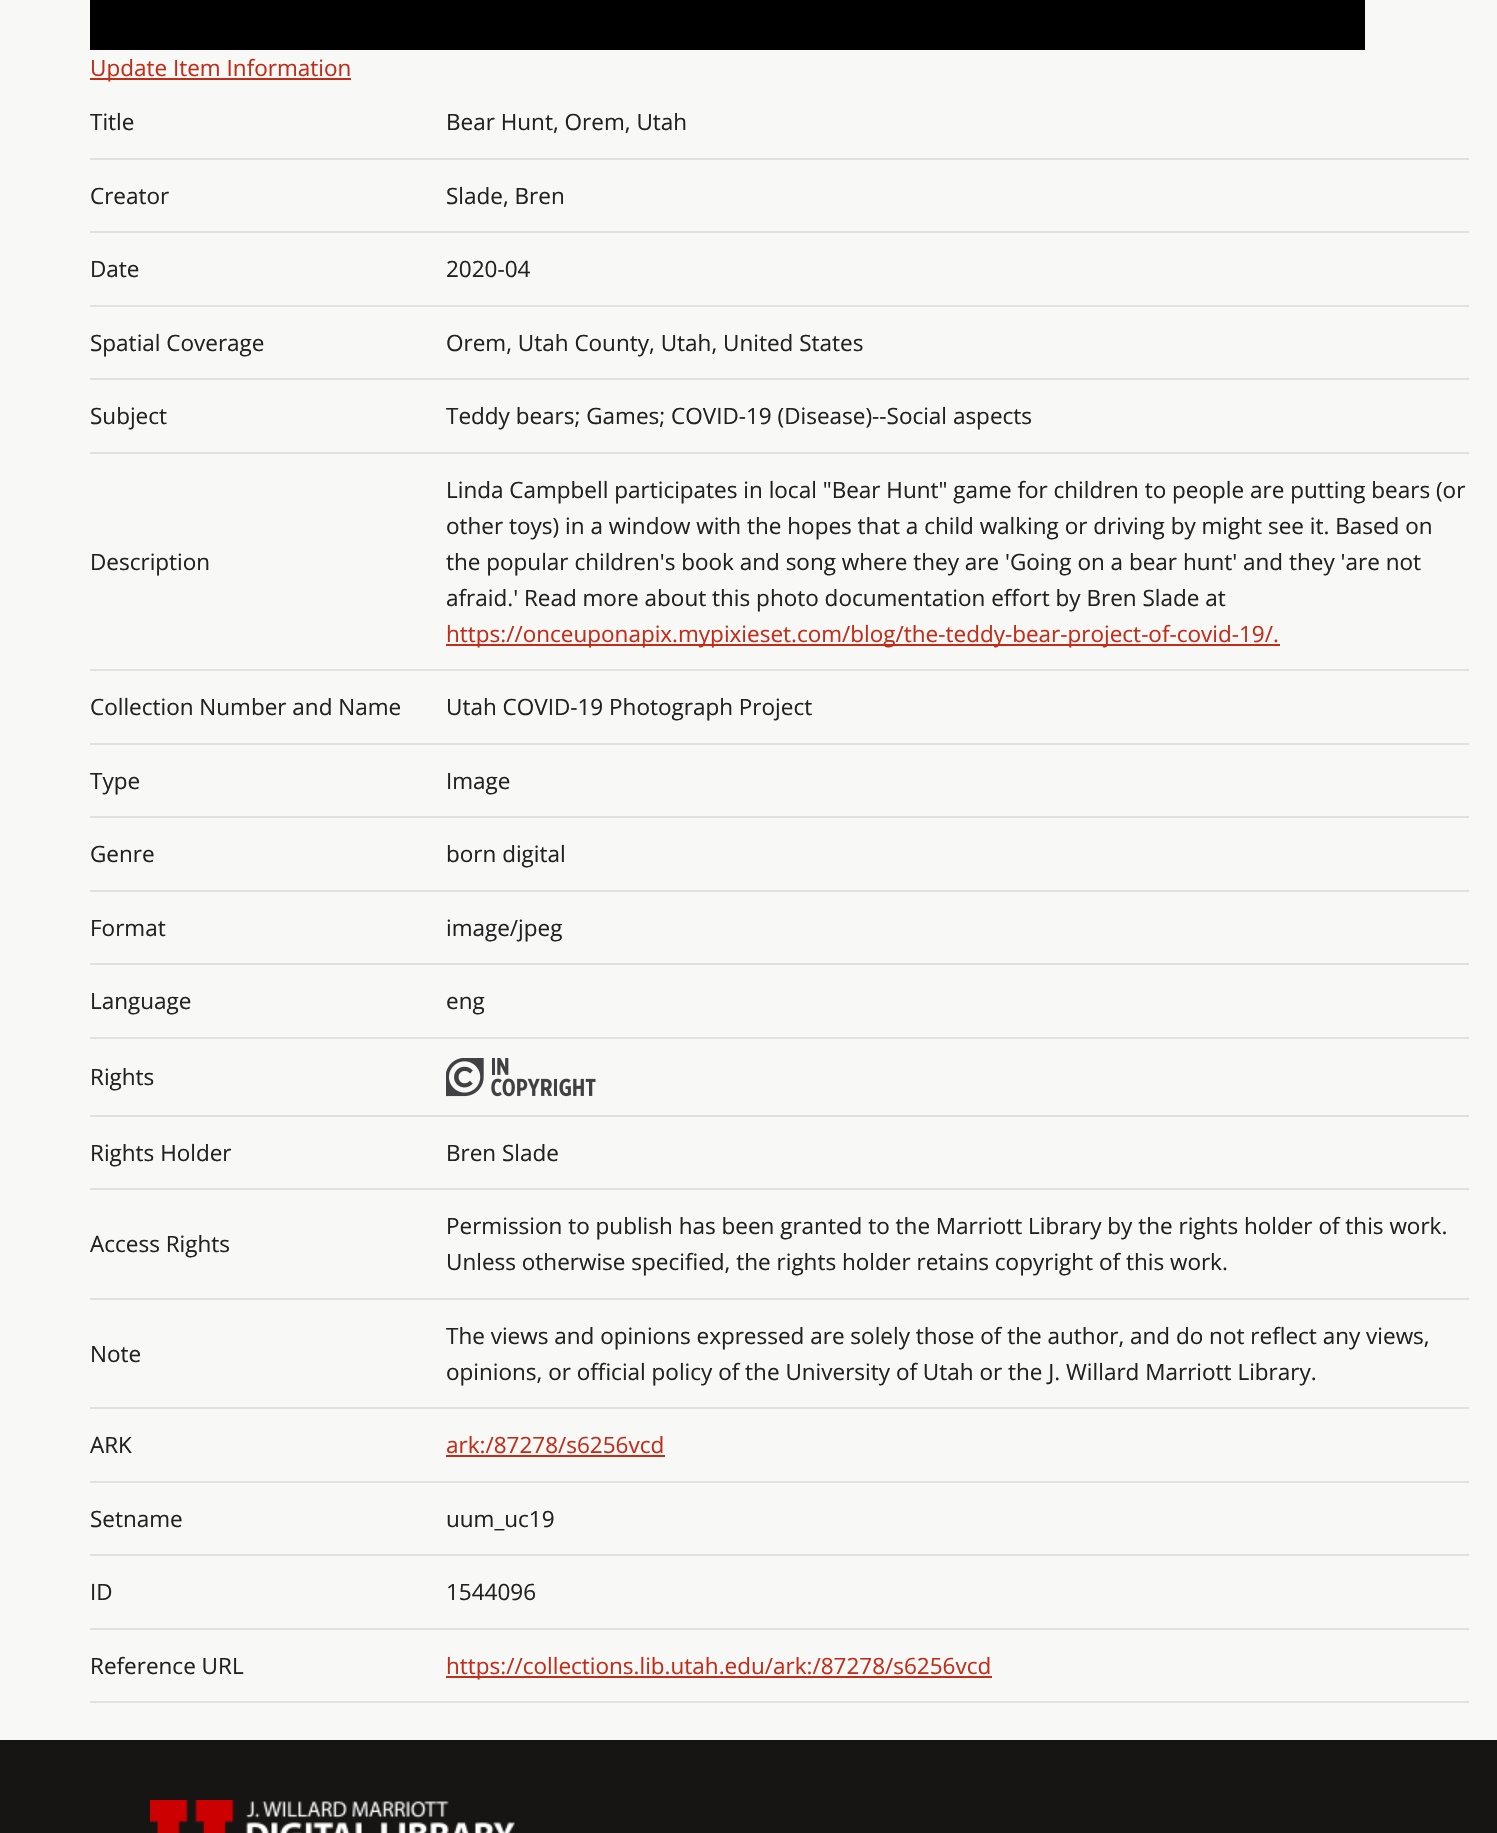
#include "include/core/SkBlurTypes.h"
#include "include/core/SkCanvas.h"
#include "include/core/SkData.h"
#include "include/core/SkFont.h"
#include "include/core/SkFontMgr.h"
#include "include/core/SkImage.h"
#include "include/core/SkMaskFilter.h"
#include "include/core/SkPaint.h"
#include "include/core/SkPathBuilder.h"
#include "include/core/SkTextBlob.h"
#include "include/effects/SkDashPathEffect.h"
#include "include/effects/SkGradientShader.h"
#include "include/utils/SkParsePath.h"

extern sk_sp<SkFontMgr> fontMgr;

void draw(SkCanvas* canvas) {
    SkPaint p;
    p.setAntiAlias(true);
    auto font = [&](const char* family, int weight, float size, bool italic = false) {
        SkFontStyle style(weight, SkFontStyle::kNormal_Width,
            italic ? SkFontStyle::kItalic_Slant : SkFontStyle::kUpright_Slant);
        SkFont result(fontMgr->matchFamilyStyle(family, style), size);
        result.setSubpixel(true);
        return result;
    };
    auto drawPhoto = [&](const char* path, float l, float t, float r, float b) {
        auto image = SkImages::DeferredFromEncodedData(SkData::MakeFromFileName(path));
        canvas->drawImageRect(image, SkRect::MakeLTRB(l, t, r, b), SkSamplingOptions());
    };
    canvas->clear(0xFFF8F8F7);
    p.setColor(0xFF000000);
    canvas->drawRect(SkRect::MakeLTRB(90, 0, 1365, 50), p);
    p.setColor(0xFFC22D19);
    canvas->drawRect(SkRect::MakeLTRB(90, 78, 351, 80), p);
    auto font1 = font("Open Sans", 400, 22.5f);
    canvas->drawString("Update Item Information", 90, 76, font1, p);
    p.setColor(0xFF222222);
    canvas->drawString("Title", 90, 130, font1, p);
    p.setColor(0xFFE1E1E1);
    canvas->drawRect(SkRect::MakeLTRB(90, 158, 1469, 160), p);
    p.setColor(0xFF222222);
    canvas->drawString("Bear Hunt, Orem, Utah", 446, 130, font1, p);
    canvas->drawString("Creator", 90, 204, font1, p);
    p.setColor(0xFFE1E1E1);
    canvas->drawRect(SkRect::MakeLTRB(90, 231, 1469, 233), p);
    p.setColor(0xFF222222);
    canvas->drawString("Slade, Bren", 446, 204, font1, p);
    canvas->drawString("Date", 90, 277, font1, p);
    p.setColor(0xFFE1E1E1);
    canvas->drawRect(SkRect::MakeLTRB(90, 305, 1469, 307), p);
    p.setColor(0xFF222222);
    canvas->drawString("2020-04", 446, 277, font1, p);
    canvas->drawString("Spatial Coverage", 90, 351, font1, p);
    p.setColor(0xFFE1E1E1);
    canvas->drawRect(SkRect::MakeLTRB(90, 378, 1469, 380), p);
    p.setColor(0xFF222222);
    canvas->drawString("Orem, Utah County, Utah, United States", 446, 351, font1, p);
    canvas->drawString("Subject", 90, 424, font1, p);
    p.setColor(0xFFE1E1E1);
    canvas->drawRect(SkRect::MakeLTRB(90, 452, 1469, 454), p);
    p.setColor(0xFF222222);
    canvas->drawString("Teddy bears; Games; COVID-19 (Disease)--Social aspects", 446, 424, font1, p);
    canvas->drawString("Description", 90, 570, font1, p);
    p.setColor(0xFFE1E1E1);
    canvas->drawRect(SkRect::MakeLTRB(90, 669, 1469, 671), p);
    p.setColor(0xFF222222);
    {
        const struct { const char* s; float x, y; } items[] = {
            {"Linda Campbell participates in local \"Bear Hunt\" game for children to people are putting bears (or", 446, 498},
            {"other toys) in a window with the hopes that a child walking or driving by might see it. Based on", 446, 534},
            {"the popular children's book and song where they are 'Going on a bear hunt' and they 'are not", 446, 570},
            {"afraid.' Read more about this photo documentation effort by Bren Slade at", 446, 606},
        };
        for (auto [s, x, y] : items) {
            canvas->drawString(s, x, y, font1, p);
        }
    }
    p.setColor(0xFFC22D19);
    canvas->drawRect(SkRect::MakeLTRB(446, 644, 1280, 646), p);
    canvas->drawString("https://onceuponapix.mypixieset.com/blog/the-teddy-bear-project-of-covid-19/.", 446, 642, font1, p);
    p.setColor(0xFF222222);
    canvas->drawString("Collection Number and Name", 90, 715, font1, p);
    p.setColor(0xFFE1E1E1);
    canvas->drawRect(SkRect::MakeLTRB(90, 743, 1469, 745), p);
    p.setColor(0xFF222222);
    canvas->drawString("Utah COVID-19 Photograph Project", 446, 715, font1, p);
    canvas->drawString("Type", 90, 789, font1, p);
    p.setColor(0xFFE1E1E1);
    canvas->drawRect(SkRect::MakeLTRB(90, 816, 1469, 818), p);
    p.setColor(0xFF222222);
    canvas->drawString("Image", 446, 789, font1, p);
    canvas->drawString("Genre", 90, 862, font1, p);
    p.setColor(0xFFE1E1E1);
    canvas->drawRect(SkRect::MakeLTRB(90, 890, 1469, 892), p);
    p.setColor(0xFF222222);
    canvas->drawString("born digital", 446, 862, font1, p);
    canvas->drawString("Format", 90, 936, font1, p);
    p.setColor(0xFFE1E1E1);
    canvas->drawRect(SkRect::MakeLTRB(90, 963, 1469, 965), p);
    p.setColor(0xFF222222);
    canvas->drawString("image/jpeg", 446, 936, font1, p);
    canvas->drawString("Language", 90, 1009, font1, p);
    p.setColor(0xFFE1E1E1);
    canvas->drawRect(SkRect::MakeLTRB(90, 1037, 1469, 1039), p);
    p.setColor(0xFF222222);
    canvas->drawString("eng", 446, 1009, font1, p);
    p.setColor(0xFFE1E1E1);
    canvas->drawRect(SkRect::MakeLTRB(90, 1115, 1469, 1117), p);
    drawPhoto("media/1.png", 446, 1058, 596, 1097);
    p.setColor(0xFF222222);
    canvas->drawString("Rights", 90, 1085, font1, p);
    canvas->drawString("Rights Holder", 90, 1161, font1, p);
    p.setColor(0xFFE1E1E1);
    canvas->drawRect(SkRect::MakeLTRB(90, 1188, 1469, 1190), p);
    p.setColor(0xFF222222);
    canvas->drawString("Bren Slade", 446, 1161, font1, p);
    canvas->drawString("Access Rights", 90, 1252, font1, p);
    p.setColor(0xFFE1E1E1);
    canvas->drawRect(SkRect::MakeLTRB(90, 1298, 1469, 1300), p);
    p.setColor(0xFF222222);
    {
        const struct { const char* s; float x, y; } items[] = {
            {"Permission to publish has been granted to the Marriott Library by the rights holder of this work.", 446, 1234},
            {"Unless otherwise specified, the rights holder retains copyright of this work.", 446, 1270},
            {"Note", 90, 1362},
        };
        for (auto [s, x, y] : items) {
            canvas->drawString(s, x, y, font1, p);
        }
    }
    p.setColor(0xFFE1E1E1);
    canvas->drawRect(SkRect::MakeLTRB(90, 1407, 1469, 1409), p);
    p.setColor(0xFF222222);
    {
        const struct { const char* s; float x, y; } items[] = {
            {"The views and opinions expressed are solely those of the author, and do not reflect any views,", 446, 1344},
            {"opinions, or official policy of the University of Utah or the J. Willard Marriott Library.", 446, 1380},
            {"ARK", 90, 1453},
        };
        for (auto [s, x, y] : items) {
            canvas->drawString(s, x, y, font1, p);
        }
    }
    p.setColor(0xFFE1E1E1);
    canvas->drawRect(SkRect::MakeLTRB(90, 1481, 1469, 1483), p);
    p.setColor(0xFFC22D19);
    canvas->drawString("ark:/87278/s6256vcd", 446, 1453, font1, p);
    canvas->drawRect(SkRect::MakeLTRB(446, 1455, 665, 1457), p);
    p.setColor(0xFF222222);
    canvas->drawString("Setname", 90, 1527, font1, p);
    p.setColor(0xFFE1E1E1);
    canvas->drawRect(SkRect::MakeLTRB(90, 1554, 1469, 1556), p);
    p.setColor(0xFF222222);
    canvas->drawString("uum_uc19", 446, 1527, font1, p);
    canvas->drawString("ID", 90, 1600, font1, p);
    p.setColor(0xFFE1E1E1);
    canvas->drawRect(SkRect::MakeLTRB(90, 1628, 1469, 1630), p);
    p.setColor(0xFF222222);
    canvas->drawString("1544096", 446, 1600, font1, p);
    canvas->drawString("Reference URL", 90, 1674, font1, p);
    p.setColor(0xFFE1E1E1);
    canvas->drawRect(SkRect::MakeLTRB(90, 1701, 1469, 1703), p);
    p.setColor(0xFFC22D19);
    canvas->drawRect(SkRect::MakeLTRB(446, 1676, 992, 1678), p);
    canvas->drawString("https://collections.lib.utah.edu/ark:/87278/s6256vcd", 446, 1674, font1, p);
    p.setColor(0xFF161514);
    canvas->drawRect(SkRect::MakeLTRB(0, 1740, 1497, 1833), p);
    drawPhoto("media/2.png", 150, 1800, 515, 1833);
}
